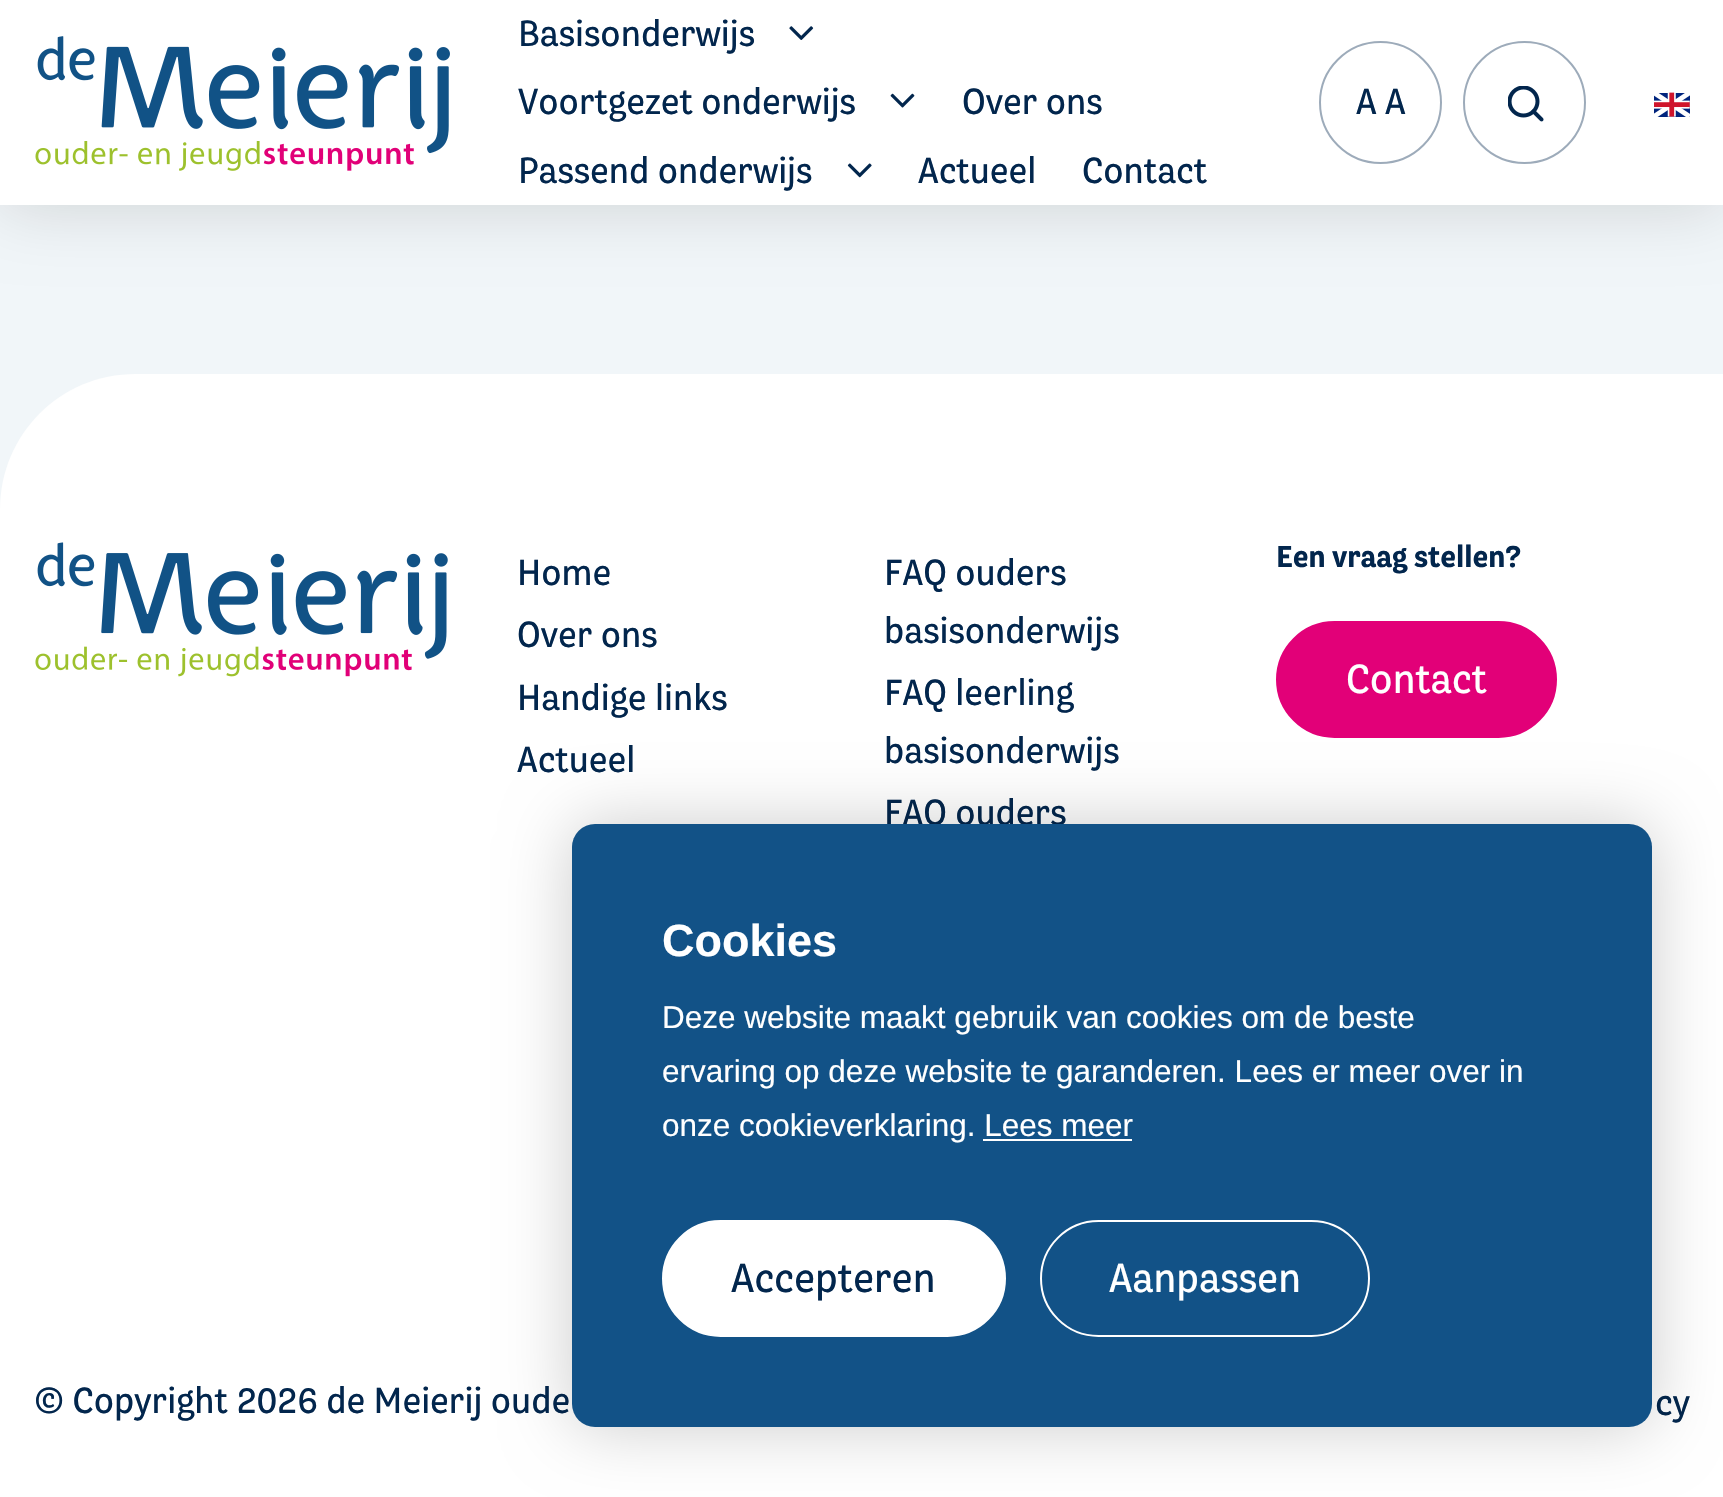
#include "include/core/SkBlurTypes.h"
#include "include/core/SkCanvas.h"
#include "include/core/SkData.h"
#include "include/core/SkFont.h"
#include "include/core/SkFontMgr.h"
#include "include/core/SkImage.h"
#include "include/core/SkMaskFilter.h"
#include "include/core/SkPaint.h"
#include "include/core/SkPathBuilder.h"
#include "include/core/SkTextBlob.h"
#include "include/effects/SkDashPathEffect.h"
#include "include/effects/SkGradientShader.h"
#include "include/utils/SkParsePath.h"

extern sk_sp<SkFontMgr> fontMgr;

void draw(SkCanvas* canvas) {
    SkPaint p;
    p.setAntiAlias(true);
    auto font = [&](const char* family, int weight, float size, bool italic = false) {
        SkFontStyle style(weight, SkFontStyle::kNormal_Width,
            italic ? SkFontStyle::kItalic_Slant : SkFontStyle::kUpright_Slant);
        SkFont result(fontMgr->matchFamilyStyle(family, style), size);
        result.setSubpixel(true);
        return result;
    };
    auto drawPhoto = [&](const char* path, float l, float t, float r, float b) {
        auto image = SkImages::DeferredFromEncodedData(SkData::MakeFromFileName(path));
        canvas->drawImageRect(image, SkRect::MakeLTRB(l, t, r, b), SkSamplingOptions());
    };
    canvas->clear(0xFFF1F6F9);
    p.setColor(0x26000000);
    p.setMaskFilter(SkMaskFilter::MakeBlur(kNormal_SkBlurStyle, 34));
    canvas->drawRect(SkRect::MakeLTRB(0, 0, 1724, 205), p);
    p.setMaskFilter(nullptr);
    p.setColor(0xFFFFFFFF);
    canvas->drawRect(SkRect::MakeLTRB(0, 0, 1723, 205), p);
    drawPhoto("media/1.png", 35, 36, 450, 171);
    auto font1 = font("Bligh", 400, 36);
    p.setColor(0xFF02264D);
    canvas->drawString("Basisonderwijs", 518, 46, font1, p);
    drawPhoto("media/2.png", 789, 26, 814, 40);
    canvas->drawString("Voortgezet onderwijs", 518, 114, font1, p);
    drawPhoto("media/3.png", 890, 93, 915, 108);
    canvas->drawString("Over ons", 962, 114, font1, p);
    canvas->drawString("Passend onderwijs", 518, 183, font1, p);
    drawPhoto("media/4.png", 847, 163, 872, 178);
    canvas->drawString("Actueel", 918, 183, font1, p);
    canvas->drawString("Contact", 1082, 183, font1, p);
    p.setStyle(SkPaint::kStroke_Style);
    p.setStrokeWidth(2);
    p.setColor(0xFF9DABBA);
    canvas->drawCircle(1380.5f, 102.5f, 60.5f, p);
    p.setStyle(SkPaint::kFill_Style);
    p.setColor(0xFF02264D);
    canvas->drawString("A A", 1356, 114, font1, p);
    p.setStyle(SkPaint::kStroke_Style);
    p.setColor(0xFF9DABBA);
    canvas->drawCircle(1524.5f, 102.5f, 60.5f, p);
    drawPhoto("media/5.png", 1508, 86, 1544, 122);
    drawPhoto("media/6.png", 1654, 92, 1690, 117);
    p.setStyle(SkPaint::kFill_Style);
    p.setColor(0xFFFFFFFF);
    canvas->drawPath(SkPathBuilder().moveTo(135, 374).lineTo(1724, 374).lineTo(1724, 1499).lineTo(0, 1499).lineTo(0, 509).cubicTo(0, 434.5f, 60.5f, 374, 135, 374).close().detach(), p);
    drawPhoto("media/7.png", 35, 542, 448, 677);
    p.setColor(0xFF02264D);
    {
        const struct { const char* s; float x, y; } items[] = {
            {"Home", 517, 585},
            {"Over ons", 517, 647},
            {"Handige links", 517, 710},
            {"Actueel", 517, 772},
            {"FAQ ouders", 884, 585},
            {"basisonderwijs", 884, 643},
            {"FAQ leerling", 884, 705},
            {"basisonderwijs", 884, 763},
            {"FAQ ouders", 884, 825},
        };
        for (auto [s, x, y] : items) {
            canvas->drawString(s, x, y, font1, p);
        }
    }
    auto font2 = font("Bligh", 700, 30);
    canvas->drawString("Een vraag stellen?", 1276, 567, font2, p);
    p.setColor(0xFFE20078);
    canvas->drawRoundRect(SkRect::MakeLTRB(1277, 622, 1556, 737), 57.5f, 57.5f, p);
    p.setStyle(SkPaint::kStroke_Style);
    canvas->drawRoundRect(SkRect::MakeLTRB(1277, 622, 1556, 737), 57.5f, 57.5f, p);
    auto font3 = font("Bligh", 400, 40.5f);
    p.setStyle(SkPaint::kFill_Style);
    p.setColor(0xFFFFFFFF);
    canvas->drawString("Contact", 1346, 693, font3, p);
    p.setColor(0xFF02264D);
    canvas->drawString("© Copyright 2026 de Meierij oude", 34, 1413, font1, p);
    canvas->drawString("cy", 1655, 1415, font1, p);
    p.setColor(0x33000000);
    p.setMaskFilter(SkMaskFilter::MakeBlur(kNormal_SkBlurStyle, 34));
    canvas->drawRoundRect(SkRect::MakeLTRB(572, 824, 1652, 1427), 23, 23, p);
    p.setMaskFilter(nullptr);
    p.setColor(0xFF125287);
    canvas->drawRoundRect(SkRect::MakeLTRB(572, 824, 1652, 1427), 23, 23, p);
    auto font4 = font("Liberation Sans", 700, 45);
    p.setColor(0xFFFFFFFF);
    canvas->drawString("Cookies", 662, 956, font4, p);
    auto font5 = font("Liberation Sans", 400, 31.5f);
    {
        const struct { const char* s; float x, y; } items[] = {
            {"Deze website maakt gebruik van cookies om de beste", 662, 1028},
            {"ervaring op deze website te garanderen. Lees er meer over in", 662, 1082},
            {"onze cookieverklaring. Lees meer", 662, 1136},
        };
        for (auto [s, x, y] : items) {
            canvas->drawString(s, x, y, font5, p);
        }
    }
    canvas->drawRect(SkRect::MakeLTRB(983, 1139, 1132, 1141), p);
    canvas->drawRoundRect(SkRect::MakeLTRB(663, 1221, 1005, 1336), 57.5f, 57.5f, p);
    p.setStyle(SkPaint::kStroke_Style);
    canvas->drawRoundRect(SkRect::MakeLTRB(663, 1221, 1005, 1336), 57.5f, 57.5f, p);
    p.setStyle(SkPaint::kFill_Style);
    p.setColor(0xFF02264D);
    canvas->drawString("Accepteren", 731, 1292, font3, p);
    p.setStyle(SkPaint::kStroke_Style);
    p.setColor(0xFFFFFFFF);
    canvas->drawRoundRect(SkRect::MakeLTRB(1041, 1221, 1369, 1336), 57.5f, 57.5f, p);
    p.setStyle(SkPaint::kFill_Style);
    canvas->drawString("Aanpassen", 1109, 1292, font3, p);
}
